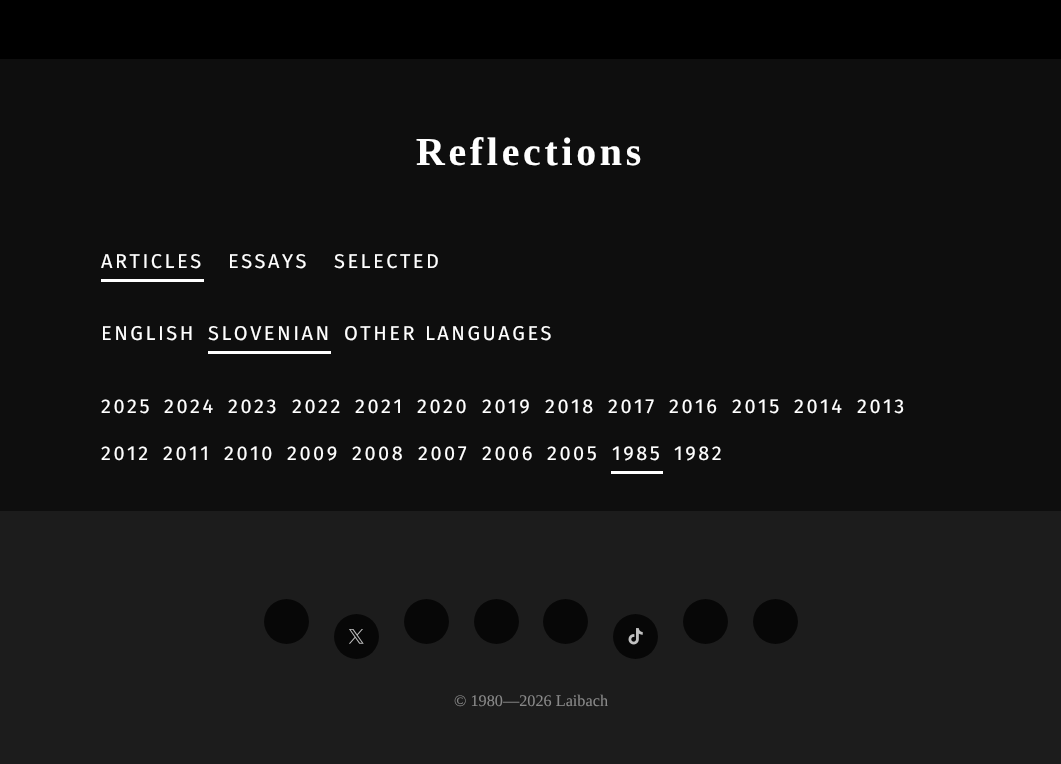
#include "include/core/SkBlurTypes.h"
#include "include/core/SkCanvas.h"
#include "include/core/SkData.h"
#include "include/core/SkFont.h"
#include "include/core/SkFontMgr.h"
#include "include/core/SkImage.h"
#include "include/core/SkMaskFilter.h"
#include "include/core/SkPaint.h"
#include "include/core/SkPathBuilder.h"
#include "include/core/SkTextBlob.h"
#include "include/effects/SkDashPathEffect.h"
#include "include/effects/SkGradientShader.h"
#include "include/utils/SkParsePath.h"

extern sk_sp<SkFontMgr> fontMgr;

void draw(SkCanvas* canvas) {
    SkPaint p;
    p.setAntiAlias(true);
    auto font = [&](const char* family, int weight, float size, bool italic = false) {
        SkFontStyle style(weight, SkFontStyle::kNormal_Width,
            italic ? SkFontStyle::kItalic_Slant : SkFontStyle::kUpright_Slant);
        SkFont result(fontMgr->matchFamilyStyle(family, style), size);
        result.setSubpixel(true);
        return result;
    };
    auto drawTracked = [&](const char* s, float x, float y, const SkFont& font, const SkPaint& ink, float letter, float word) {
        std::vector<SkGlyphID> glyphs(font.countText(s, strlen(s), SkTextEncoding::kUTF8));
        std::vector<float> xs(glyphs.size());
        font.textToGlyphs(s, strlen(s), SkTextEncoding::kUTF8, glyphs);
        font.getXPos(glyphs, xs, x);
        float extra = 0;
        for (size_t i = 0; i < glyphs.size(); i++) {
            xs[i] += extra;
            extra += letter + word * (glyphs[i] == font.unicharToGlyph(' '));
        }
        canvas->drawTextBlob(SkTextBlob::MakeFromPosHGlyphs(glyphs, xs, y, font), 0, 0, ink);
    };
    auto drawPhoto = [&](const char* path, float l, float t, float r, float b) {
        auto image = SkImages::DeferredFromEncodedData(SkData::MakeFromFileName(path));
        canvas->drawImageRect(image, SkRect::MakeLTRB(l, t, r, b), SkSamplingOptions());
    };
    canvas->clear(0xFF0E0E0E);
    p.setColor(0xFF000000);
    canvas->drawRect(SkRect::MakeLTRB(0, 0, 1061, 59), p);
    auto font1 = font("Liberation Serif", 700, 39.75f);
    p.setColor(0xFFFFFFFF);
    drawTracked("Reflections", 416, 165, font1, p, 3.75f, 0);
    canvas->drawRect(SkRect::MakeLTRB(101, 279, 204, 282), p);
    auto font2 = font("Fira Sans", 400, 20);
    {
        const struct { const char* s; float x, y; } items[] = {
            {"ARTICLES", 101, 268},
            {"ESSAYS", 228, 268},
            {"SELECTED", 334, 268},
            {"ENGLISH", 101, 340},
        };
        for (auto [s, x, y] : items) {
            drawTracked(s, x, y, font2, p, 2.5f, 0);
        }
    }
    canvas->drawRect(SkRect::MakeLTRB(208, 351, 331, 354), p);
    {
        const struct { const char* s; float x, y; } items[] = {
            {"SLOVENIAN", 208, 340},
            {"OTHER LANGUAGES", 344, 340},
            {"2025", 101, 413},
            {"2024", 164, 413},
            {"2023", 228, 413},
            {"2022", 292, 413},
            {"2021", 355, 413},
            {"2020", 417, 413},
            {"2019", 482, 413},
            {"2018", 545, 413},
            {"2017", 608, 413},
            {"2016", 669, 413},
            {"2015", 732, 413},
            {"2014", 794, 413},
            {"2013", 857, 413},
            {"2012", 101, 460},
            {"2011", 163, 460},
            {"2010", 224, 460},
            {"2009", 287, 460},
            {"2008", 352, 460},
            {"2007", 418, 460},
            {"2006", 482, 460},
            {"2005", 547, 460},
        };
        for (auto [s, x, y] : items) {
            drawTracked(s, x, y, font2, p, 2.5f, 0);
        }
    }
    canvas->drawRect(SkRect::MakeLTRB(611, 471, 663, 474), p);
    drawTracked("1985", 612, 460, font2, p, 2.5f, 0);
    drawTracked("1982", 674, 460, font2, p, 2.5f, 0);
    p.setColor(0xFF1C1C1C);
    canvas->drawRect(SkRect::MakeLTRB(0, 511, 1061, 764), p);
    p.setColor(0xFF070707);
    canvas->drawCircle(286.5f, 621.5f, 22.5f, p);
    canvas->drawCircle(356.5f, 636.5f, 22.5f, p);
    drawPhoto("media/1.png", 349, 629, 364, 644);
    canvas->drawCircle(426.5f, 621.5f, 22.5f, p);
    canvas->drawCircle(496.5f, 621.5f, 22.5f, p);
    canvas->drawCircle(565.5f, 621.5f, 22.5f, p);
    canvas->drawCircle(635.5f, 636.5f, 22.5f, p);
    drawPhoto("media/2.png", 628, 628, 643, 645);
    canvas->drawCircle(705.5f, 621.5f, 22.5f, p);
    canvas->drawCircle(775.5f, 621.5f, 22.5f, p);
    auto font3 = font("Liberation Serif", 400, 16.25f);
    p.setColor(0xFF888888);
    canvas->drawString("© 1980—2026 Laibach", 454, 706, font3, p);
}
